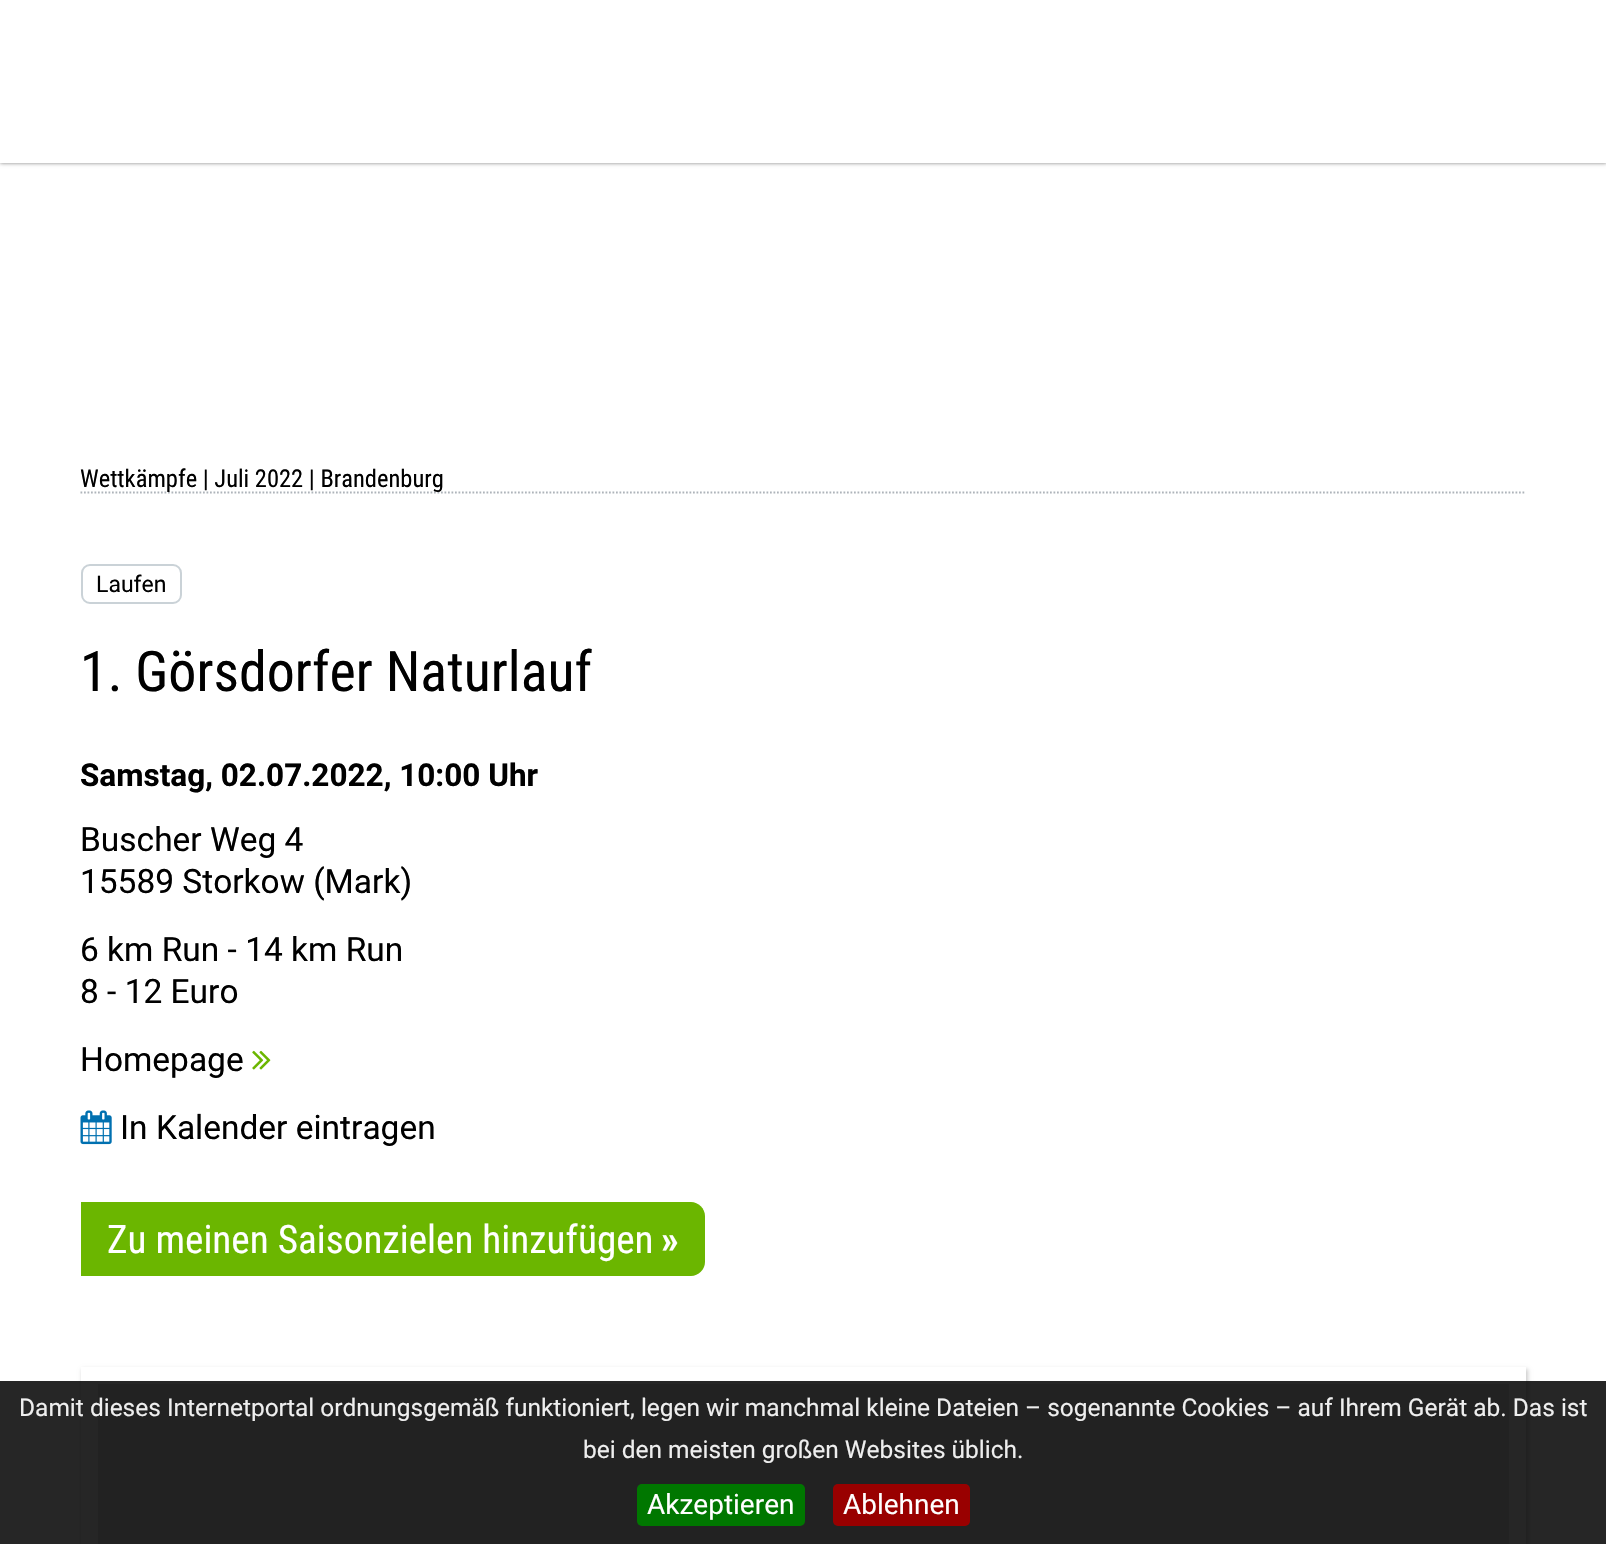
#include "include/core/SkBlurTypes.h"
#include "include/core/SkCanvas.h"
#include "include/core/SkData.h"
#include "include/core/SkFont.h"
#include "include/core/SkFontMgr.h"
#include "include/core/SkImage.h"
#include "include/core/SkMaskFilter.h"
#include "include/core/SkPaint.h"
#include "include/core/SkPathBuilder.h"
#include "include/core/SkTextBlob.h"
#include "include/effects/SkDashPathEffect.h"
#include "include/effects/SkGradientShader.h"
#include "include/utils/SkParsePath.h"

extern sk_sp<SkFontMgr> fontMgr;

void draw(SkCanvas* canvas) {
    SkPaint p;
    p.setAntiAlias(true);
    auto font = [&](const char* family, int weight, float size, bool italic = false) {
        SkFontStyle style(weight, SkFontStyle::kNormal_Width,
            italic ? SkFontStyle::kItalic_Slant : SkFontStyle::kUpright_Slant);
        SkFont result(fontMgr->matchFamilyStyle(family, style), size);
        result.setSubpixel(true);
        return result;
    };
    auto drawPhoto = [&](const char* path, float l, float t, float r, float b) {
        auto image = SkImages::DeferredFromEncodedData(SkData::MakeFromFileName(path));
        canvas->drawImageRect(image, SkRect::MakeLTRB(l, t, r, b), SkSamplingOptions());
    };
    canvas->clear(0xFFFFFFFF);
    p.setColor(0x80000000);
    p.setMaskFilter(SkMaskFilter::MakeBlur(kNormal_SkBlurStyle, 2));
    canvas->drawRect(SkRect::MakeLTRB(0, 0, 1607, 163), p);
    p.setMaskFilter(nullptr);
    p.setColor(0xFFFFFFFF);
    canvas->drawRect(SkRect::MakeLTRB(0, 0, 1606, 163), p);
    p.setStyle(SkPaint::kStroke_Style);
    p.setStrokeWidth(1.8f);
    p.setColor(0xFFAEB4BA);
    p.setPathEffect(SkDashPathEffect::Make({{1.75f, 1.75f}}, 0));
    canvas->drawPath(SkPathBuilder().moveTo(80.5f, 492.5f).lineTo(1526, 492.5f).detach(), p);
    p.setPathEffect(nullptr);
    auto font1 = font("Roboto Condensed", 400, 24.5f);
    p.setStyle(SkPaint::kFill_Style);
    p.setColor(0xFF000000);
    canvas->drawString("Wettkämpfe | Juli 2022 | Brandenburg", 80, 487, font1, p);
    p.setStyle(SkPaint::kStroke_Style);
    p.setStrokeWidth(2);
    p.setColor(0xFFCAD2D7);
    canvas->drawRoundRect(SkRect::MakeLTRB(82, 565, 181, 603), 8, 8, p);
    auto font2 = font("Roboto", 400, 23);
    p.setStyle(SkPaint::kFill_Style);
    p.setColor(0xFF000000);
    canvas->drawString("Laufen", 96, 592, font2, p);
    auto font3 = font("Roboto Condensed", 400, 56);
    canvas->drawString("1. Görsdorfer Naturlauf", 80, 691, font3, p);
    auto font4 = font("Roboto", 700, 31.5f);
    canvas->drawString("Samstag, 02.07.2022, 10:00 Uhr", 80, 786, font4, p);
    auto font5 = font("Roboto", 400, 33.5f);
    {
        const struct { const char* s; float x, y; } items[] = {
            {"Buscher Weg 4", 80, 851},
            {"15589 Storkow (Mark)", 80, 893},
            {"6 km Run - 14 km Run", 80, 961},
            {"8 - 12 Euro", 80, 1003},
            {"Homepage", 80, 1071},
        };
        for (auto [s, x, y] : items) {
            canvas->drawString(s, x, y, font5, p);
        }
    }
    drawPhoto("media/1.png", 252, 1050, 271, 1070);
    drawPhoto("media/2.png", 80, 1110, 112, 1145);
    canvas->drawString("In Kalender eintragen", 120, 1139, font5, p);
    p.setColor(0xFF6BB600);
    canvas->drawRect(SkRect::MakeLTRB(81, 1202, 653, 1276), p);
    auto font6 = font("Roboto Condensed", 400, 39.25f);
    p.setColor(0xFFFFFFFF);
    canvas->drawString("Zu meinen Saisonzielen hinzufügen", 107, 1253, font6, p);
    p.setColor(0xFF6BB600);
    canvas->drawPath(SkPathBuilder().moveTo(653, 1202).lineTo(691, 1202).cubicTo(698.5f, 1202, 705, 1208.5f, 705, 1216).lineTo(705, 1262).cubicTo(705, 1269.5f, 698.5f, 1276, 691, 1276).lineTo(653, 1276).close().detach(), p);
    auto font7 = font("Roboto Condensed", 700, 39.25f);
    p.setColor(0xFFFFFFFF);
    canvas->drawString("»", 661, 1253, font7, p);
    canvas->save();
    canvas->clipPath(SkPathBuilder(SkPathFillType::kEvenOdd).moveTo(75, 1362).lineTo(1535, 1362).lineTo(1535, 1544).lineTo(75, 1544).close().moveTo(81, 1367).lineTo(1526, 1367).lineTo(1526, 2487).lineTo(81, 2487).close().detach(), true);
    p.setColor(0x33000000);
    p.setMaskFilter(SkMaskFilter::MakeBlur(kNormal_SkBlurStyle, 2));
    canvas->drawRect(SkRect::MakeLTRB(82, 1369, 1528, 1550), p);
    p.setMaskFilter(nullptr);
    canvas->restore();
    p.setColor(0xFFE5E3DF);
    canvas->drawRect(SkRect::MakeLTRB(98, 1384, 1509, 1544), p);
    p.setColor(0xD9000000);
    canvas->drawRect(SkRect::MakeLTRB(0, 1381, 1606, 1544), p);
    auto font8 = font("Roboto", 400, 24.5f);
    p.setColor(0xFFEEEEEE);
    canvas->drawString("Damit dieses Internetportal ordnungsgemäß funktioniert, legen wir manchmal kleine Dateien – sogenannte Cookies – auf Ihrem Gerät ab. Das ist", 19, 1416, font8, p);
    canvas->drawString("bei den meisten großen Websites üblich.", 583, 1458, font8, p);
    p.setColor(0xFF007700);
    canvas->drawRoundRect(SkRect::MakeLTRB(637, 1484, 805, 1526), 5, 5, p);
    auto font9 = font("Roboto", 400, 28);
    p.setColor(0xFFFFFFFF);
    canvas->drawString("Akzeptieren", 647, 1514, font9, p);
    p.setColor(0xFF990000);
    canvas->drawRoundRect(SkRect::MakeLTRB(833, 1484, 970, 1526), 5, 5, p);
    p.setColor(0xFFFFFFFF);
    canvas->drawString("Ablehnen", 843, 1514, font9, p);
}
